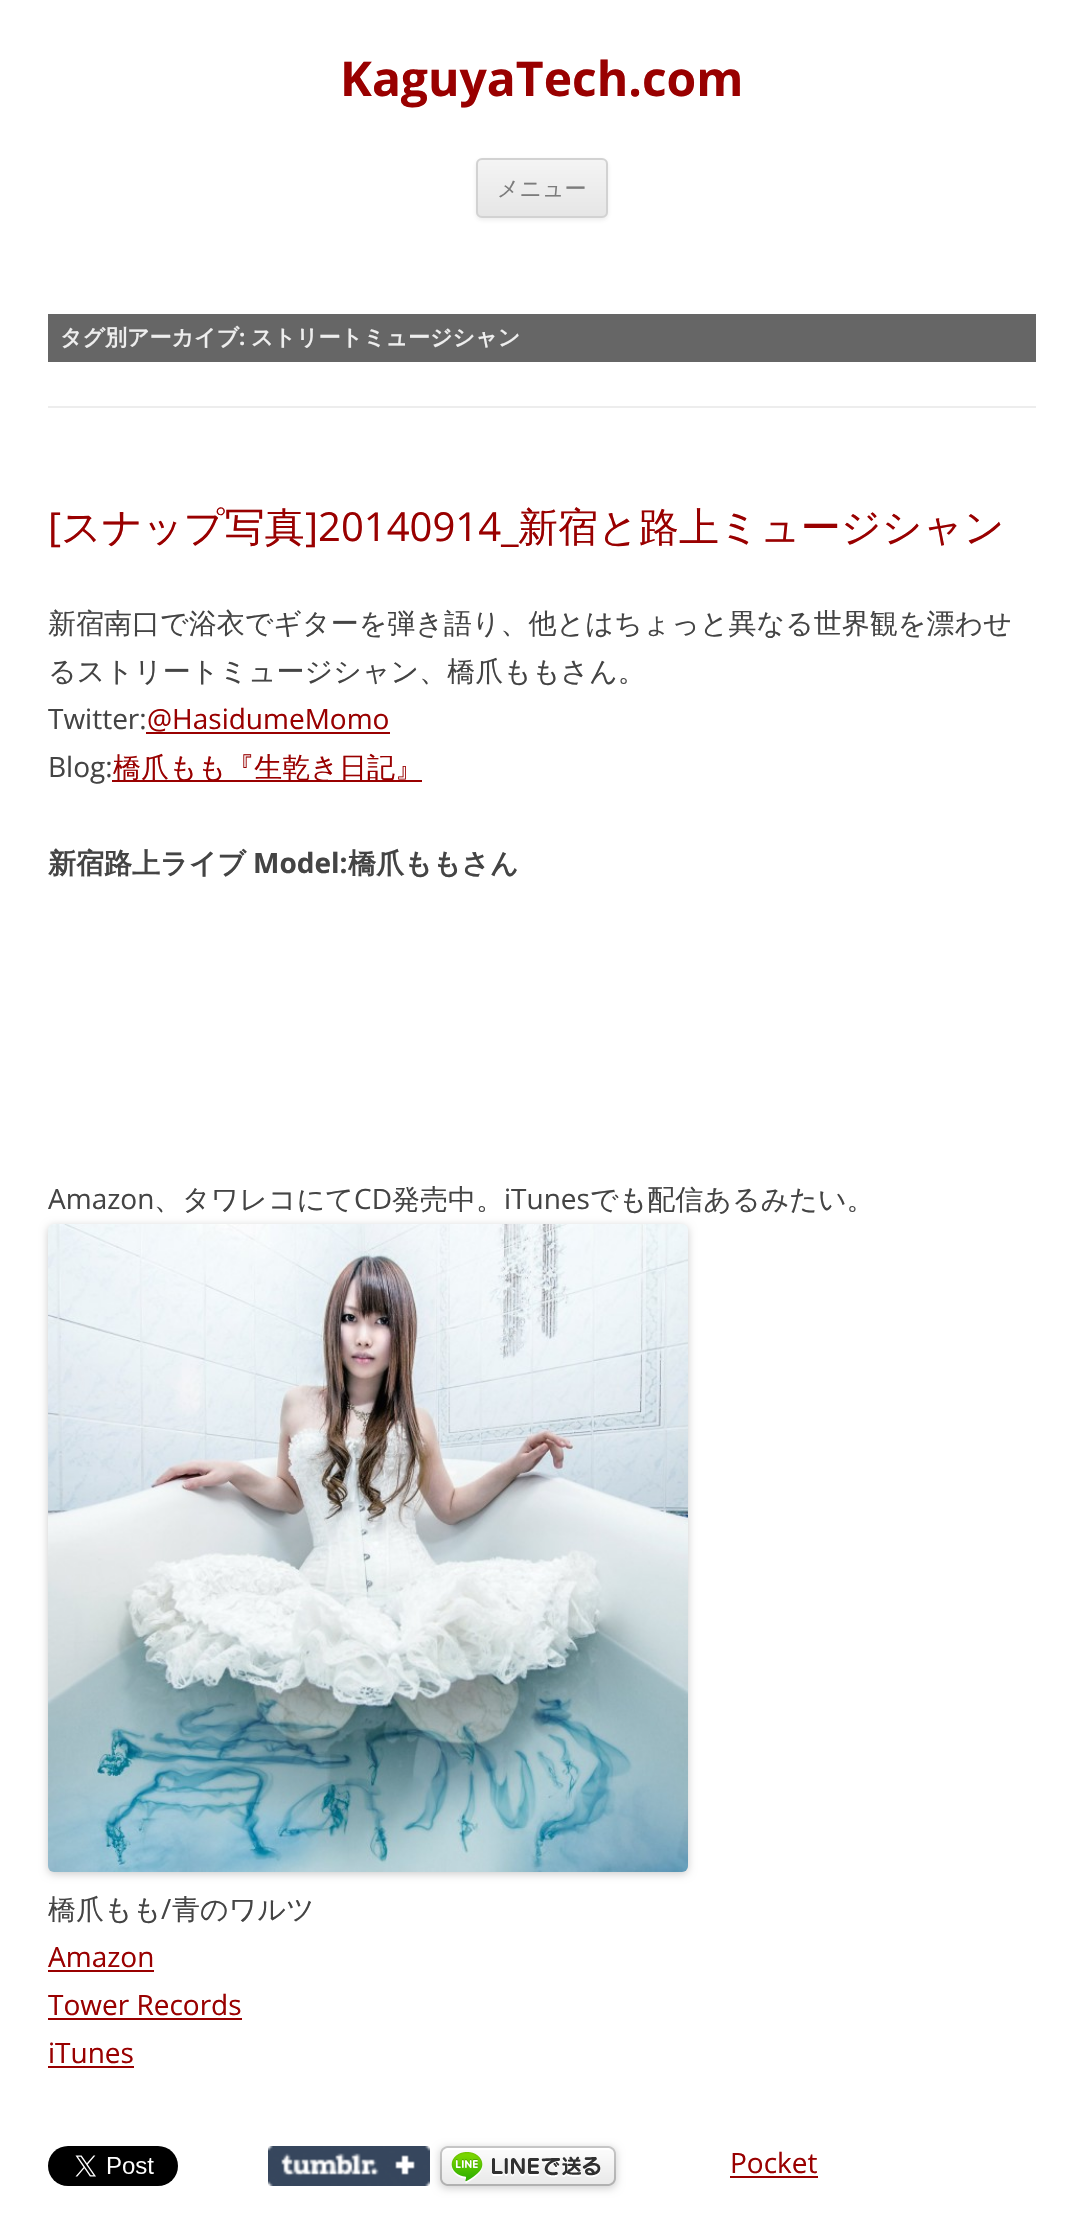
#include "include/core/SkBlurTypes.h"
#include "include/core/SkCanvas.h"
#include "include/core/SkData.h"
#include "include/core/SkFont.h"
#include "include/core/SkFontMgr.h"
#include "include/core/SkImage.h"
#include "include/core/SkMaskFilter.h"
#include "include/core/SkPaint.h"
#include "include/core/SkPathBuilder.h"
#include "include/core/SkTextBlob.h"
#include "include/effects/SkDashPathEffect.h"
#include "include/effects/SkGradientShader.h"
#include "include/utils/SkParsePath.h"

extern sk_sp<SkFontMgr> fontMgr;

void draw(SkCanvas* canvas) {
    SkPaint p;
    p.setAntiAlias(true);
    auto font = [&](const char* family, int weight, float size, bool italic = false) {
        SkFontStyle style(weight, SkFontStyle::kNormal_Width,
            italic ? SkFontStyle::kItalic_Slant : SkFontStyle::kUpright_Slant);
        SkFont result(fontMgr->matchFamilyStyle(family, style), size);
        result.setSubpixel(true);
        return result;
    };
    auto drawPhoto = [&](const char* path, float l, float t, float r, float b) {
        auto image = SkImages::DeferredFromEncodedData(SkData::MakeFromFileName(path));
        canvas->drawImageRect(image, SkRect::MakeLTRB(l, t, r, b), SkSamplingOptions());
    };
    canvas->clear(0xFFFFFFFF);
    auto font1 = font("Open Sans", 700, 48);
    p.setColor(0xFF990000);
    canvas->drawString("KaguyaTech.com", 340, 96, font1, p);
    p.setColor(0x1A404040);
    p.setMaskFilter(SkMaskFilter::MakeBlur(kNormal_SkBlurStyle, 2));
    canvas->drawRoundRect(SkRect::MakeLTRB(476, 160, 608, 220), 6, 6, p);
    p.setMaskFilter(nullptr);
    canvas->save();
    canvas->clipPath(SkPathBuilder().moveTo(482, 158).lineTo(602, 158).cubicTo(605.5f, 158, 608, 160.5f, 608, 164).lineTo(608, 212).cubicTo(608, 215.5f, 605.5f, 218, 602, 218).lineTo(482, 218).cubicTo(478.5f, 218, 476, 215.5f, 476, 212).lineTo(476, 164).cubicTo(476, 160.5f, 478.5f, 158, 482, 158).close().detach(), true);
    {
        const SkColor colors[] = {0xFFF4F4F4, 0xFFE6E6E6};
        const float stops[] = {0, 1};
        const SkPoint ends[] = {{542, 160}, {542, 216}};
        p.setShader(SkGradientShader::MakeLinear(ends, colors, stops, 2, SkTileMode::kClamp));
        p.setAlpha(255);
    }
    canvas->drawRect(SkRect::MakeLTRB(476, 160, 608, 216), p);
    canvas->restore();
    p.setStyle(SkPaint::kStroke_Style);
    p.setStrokeWidth(2);
    p.setShader(nullptr);
    p.setColor(0xFFD2D2D2);
    canvas->drawRoundRect(SkRect::MakeLTRB(477, 159, 607, 217), 5, 5, p);
    auto font2 = font("WenQuanYi Zen Hei", 500, 22);
    p.setStyle(SkPaint::kFill_Style);
    p.setColor(0xFF7C7C7C);
    canvas->drawString("メニュー", 497, 196, font2, p);
    p.setColor(0xFFEDEDED);
    canvas->drawRect(SkRect::MakeLTRB(48, 406, 1036, 408), p);
    p.setColor(0xFF666666);
    canvas->drawRect(SkRect::MakeLTRB(48, 314, 1036, 362), p);
    auto font3 = font("WenQuanYi Zen Hei", 700, 22);
    p.setColor(0xFFEEEEEE);
    canvas->drawString("タグ別アーカイブ", 60, 345, font3, p);
    auto font4 = font("Open Sans", 700, 22);
    canvas->drawString(":", 239, 345, font4, p);
    canvas->drawString("ストリートミュージシャン", 251, 345, font3, p);
    auto font5 = font("Open Sans", 400, 40);
    p.setColor(0xFF990000);
    canvas->drawString("[", 48, 541, font5, p);
    auto font6 = font("WenQuanYi Zen Hei", 500, 40);
    canvas->drawString("スナップ写真", 61, 541, font6, p);
    canvas->drawString("]20140914_", 305, 541, font5, p);
    canvas->drawString("新宿と路上ミュージシャン", 518, 541, font6, p);
    auto font7 = font("WenQuanYi Zen Hei", 500, 28);
    p.setColor(0xFF444444);
    canvas->drawString("新宿南口で浴衣でギターを弾き語り、他とはちょっと異なる世界観を漂わせ", 48, 633, font7, p);
    canvas->drawString("るストリートミュージシャン、橋爪ももさん。", 48, 681, font7, p);
    auto font8 = font("Open Sans", 400, 28);
    canvas->drawString("Twitter:", 48, 729, font8, p);
    p.setColor(0xFF990000);
    canvas->drawString("@HasidumeMomo", 147, 729, font8, p);
    canvas->drawRect(SkRect::MakeLTRB(146, 732, 390, 734), p);
    p.setColor(0xFF444444);
    canvas->drawString("Blog:", 48, 777, font8, p);
    p.setColor(0xFF990000);
    canvas->drawRect(SkRect::MakeLTRB(112, 780, 422, 782), p);
    canvas->drawString("橋爪もも『生乾き日記』", 113, 777, font7, p);
    auto font9 = font("WenQuanYi Zen Hei", 700, 28);
    p.setColor(0xFF444444);
    canvas->drawString("新宿路上ライブ", 48, 873, font9, p);
    auto font10 = font("Open Sans", 700, 28);
    canvas->drawString("Model:", 253, 873, font10, p);
    canvas->drawString("橋爪ももさん", 348, 873, font9, p);
    canvas->drawString("Amazon", 48, 1209, font8, p);
    canvas->drawString("、タワレコにて", 154, 1209, font7, p);
    canvas->drawString("CD", 354, 1209, font8, p);
    canvas->drawString("発売中。", 392, 1209, font7, p);
    canvas->drawString("iTunes", 504, 1209, font8, p);
    canvas->drawString("でも配信あるみたい。", 590, 1209, font7, p);
    p.setColor(0x33000000);
    p.setMaskFilter(SkMaskFilter::MakeBlur(kNormal_SkBlurStyle, 4));
    canvas->drawRoundRect(SkRect::MakeLTRB(48, 1226, 688, 1874), 6, 6, p);
    p.setMaskFilter(nullptr);
    drawPhoto("media/1.png", 48, 1224, 688, 1872);
    p.setColor(0xFF444444);
    canvas->drawString("橋爪もも", 48, 1919, font7, p);
    canvas->drawString("/", 161, 1919, font8, p);
    canvas->drawString("青のワルツ", 172, 1919, font7, p);
    p.setColor(0xFF990000);
    canvas->drawString("Amazon", 48, 1967, font8, p);
    canvas->drawRect(SkRect::MakeLTRB(48, 1970, 154, 1972), p);
    canvas->drawString("Tower Records", 48, 2015, font8, p);
    canvas->drawRect(SkRect::MakeLTRB(48, 2018, 242, 2020), p);
    canvas->drawString("iTunes", 48, 2063, font8, p);
    canvas->drawRect(SkRect::MakeLTRB(48, 2066, 134, 2068), p);
    drawPhoto("media/2.png", 48, 2146, 178, 2186);
    p.setColor(0x33000000);
    p.setMaskFilter(SkMaskFilter::MakeBlur(kNormal_SkBlurStyle, 4));
    canvas->drawRoundRect(SkRect::MakeLTRB(440, 2148, 616, 2188), 6, 6, p);
    p.setMaskFilter(nullptr);
    drawPhoto("media/3.png", 268, 2146, 430, 2186);
    drawPhoto("media/4.png", 440, 2146, 616, 2186);
    p.setColor(0xFF990000);
    canvas->drawString("Pocket", 730, 2173, font8, p);
    canvas->drawRect(SkRect::MakeLTRB(730, 2176, 818, 2178), p);
}
